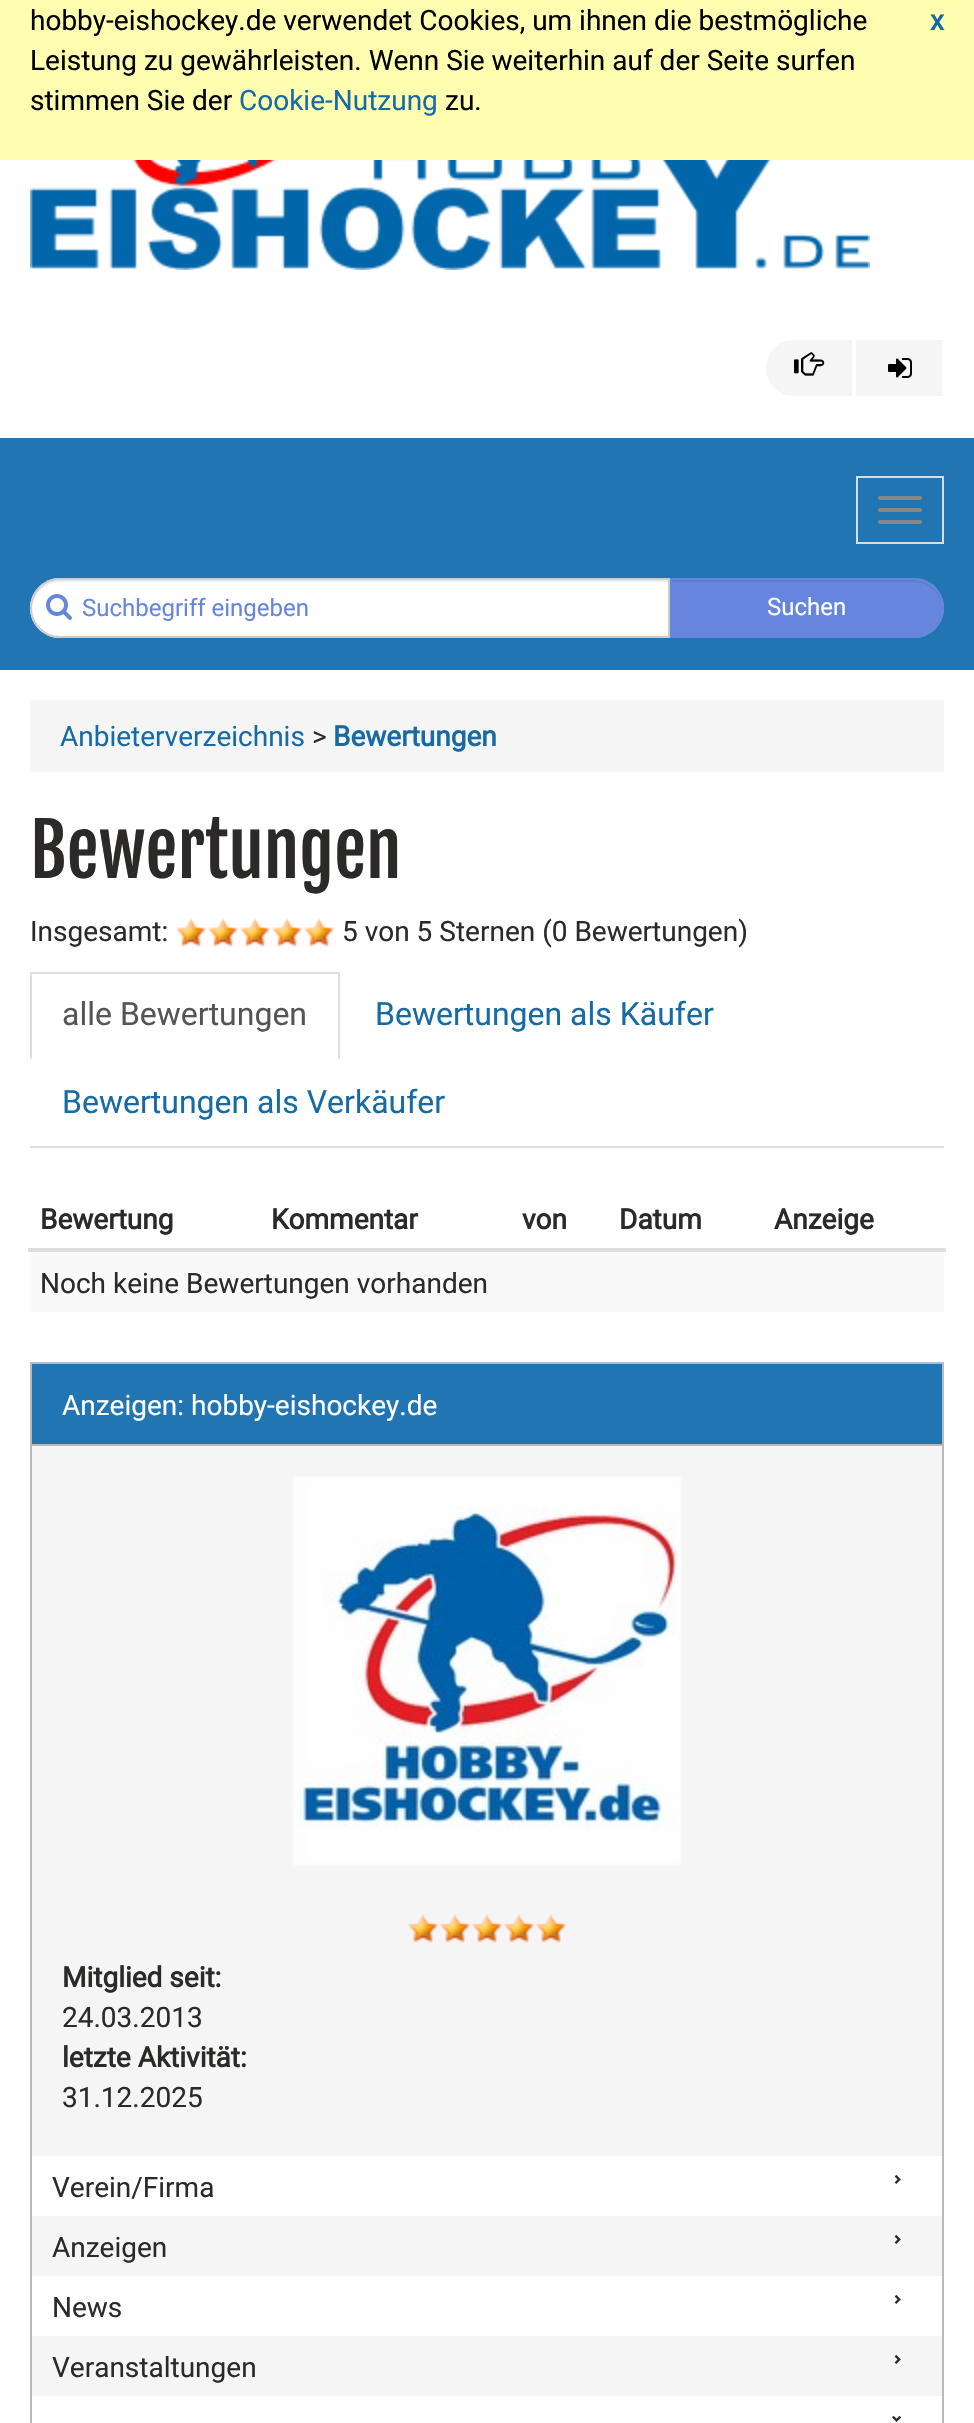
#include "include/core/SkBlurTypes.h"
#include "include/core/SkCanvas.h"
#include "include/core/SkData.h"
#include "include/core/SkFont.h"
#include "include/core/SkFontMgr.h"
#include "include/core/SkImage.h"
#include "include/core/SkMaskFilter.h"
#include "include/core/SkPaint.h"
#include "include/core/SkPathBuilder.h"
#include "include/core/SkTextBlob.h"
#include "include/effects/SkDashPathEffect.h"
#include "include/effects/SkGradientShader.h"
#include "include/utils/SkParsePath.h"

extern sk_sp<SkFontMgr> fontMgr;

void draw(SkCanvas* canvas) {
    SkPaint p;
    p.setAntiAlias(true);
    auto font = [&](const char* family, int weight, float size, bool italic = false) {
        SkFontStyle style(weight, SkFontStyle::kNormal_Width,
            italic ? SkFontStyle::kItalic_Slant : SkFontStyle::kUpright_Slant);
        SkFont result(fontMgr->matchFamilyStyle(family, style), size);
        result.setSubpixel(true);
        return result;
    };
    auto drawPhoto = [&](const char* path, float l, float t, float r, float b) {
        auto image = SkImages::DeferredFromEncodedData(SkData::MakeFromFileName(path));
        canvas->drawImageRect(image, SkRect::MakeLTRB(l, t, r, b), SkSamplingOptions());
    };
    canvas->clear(0xFFFFFFFF);
    p.setColor(0xFFFFFEB0);
    canvas->drawRect(SkRect::MakeLTRB(0, 0, 974, 160), p);
    auto font1 = font("Roboto", 400, 28);
    p.setColor(0xFF000000);
    canvas->drawString("hobby-eishockey.de verwendet Cookies, um ihnen die bestmögliche", 30, 30, font1, p);
    auto font2 = font("Roboto", 700, 28);
    p.setColor(0xFF166BA5);
    canvas->drawString("x", 930, 30, font2, p);
    p.setColor(0xFF000000);
    canvas->drawString("Leistung zu gewährleisten. Wenn Sie weiterhin auf der Seite surfen", 30, 70, font1, p);
    canvas->drawString("stimmen Sie der", 30, 110, font1, p);
    p.setColor(0xFF166BA5);
    canvas->drawString("Cookie-Nutzung", 239, 110, font1, p);
    p.setColor(0xFF000000);
    canvas->drawString("zu.", 445, 110, font1, p);
    drawPhoto("media/1.png", 30, 160, 870, 270);
    p.setColor(0xFFF5F5F5);
    canvas->drawPath(SkPathBuilder().moveTo(794, 339).lineTo(853, 339).lineTo(853, 397).lineTo(794, 397).cubicTo(778, 397, 765, 384, 765, 368).cubicTo(765, 352, 778, 339, 794, 339).close().detach(), p);
    p.setStyle(SkPaint::kStroke_Style);
    p.setStrokeWidth(2);
    p.setColor(0xFFFFFFFF);
    canvas->drawPath(SkPathBuilder().moveTo(794, 339).lineTo(853, 339).lineTo(853, 397).lineTo(794, 397).cubicTo(778, 397, 765, 384, 765, 368).cubicTo(765, 352, 778, 339, 794, 339).close().detach(), p);
    drawPhoto("media/2.png", 794, 352, 825, 376);
    p.setStyle(SkPaint::kFill_Style);
    p.setColor(0xFFF5F5F5);
    canvas->drawRect(SkRect::MakeLTRB(856, 340, 942, 396), p);
    drawPhoto("media/3.png", 888, 358, 912, 378);
    p.setColor(0xFF2075B2);
    canvas->drawRect(SkRect::MakeLTRB(0, 438, 974, 670), p);
    p.setStyle(SkPaint::kStroke_Style);
    p.setColor(0xFFDDDDDD);
    canvas->drawRect(SkRect::MakeLTRB(857, 477, 943, 543), p);
    p.setStyle(SkPaint::kFill_Style);
    p.setColor(0xFF888888);
    canvas->drawRoundRect(SkRect::MakeLTRB(878, 496, 922, 500), 2, 2, p);
    canvas->drawRoundRect(SkRect::MakeLTRB(878, 508, 922, 512), 2, 2, p);
    canvas->drawRoundRect(SkRect::MakeLTRB(878, 520, 922, 524), 2, 2, p);
    p.setColor(0xFFFFFFFF);
    canvas->drawPath(SkPathBuilder().moveTo(60, 578).lineTo(670, 578).lineTo(670, 638).lineTo(60, 638).cubicTo(43.5f, 638, 30, 624.5f, 30, 608).cubicTo(30, 591.5f, 43.5f, 578, 60, 578).close().detach(), p);
    p.setColor(0xFFECECEC);
    canvas->drawPath(SkPathBuilder().moveTo(60, 582).lineTo(668, 582).lineTo(668, 580).lineTo(60, 580).cubicTo(44, 580, 31, 593, 32, 609).cubicTo(33, 594, 45, 582, 60, 582).close().detach(), p);
    p.setStyle(SkPaint::kStroke_Style);
    p.setColor(0xFFCCCCCC);
    canvas->drawPath(SkPathBuilder().moveTo(60, 579).lineTo(669, 579).lineTo(669, 637).lineTo(60, 637).cubicTo(44, 637, 31, 624, 31, 608).cubicTo(31, 592, 44, 579, 60, 579).close().detach(), p);
    drawPhoto("media/4.png", 46, 594, 72, 620);
    auto font3 = font("Roboto", 400, 24);
    p.setStyle(SkPaint::kFill_Style);
    p.setColor(0xFF6686DE);
    canvas->drawString("Suchbegriff eingeben", 82, 616, font3, p);
    canvas->drawPath(SkPathBuilder().moveTo(670, 578).lineTo(914, 578).cubicTo(930.5f, 578, 944, 591.5f, 944, 608).cubicTo(944, 624.5f, 930.5f, 638, 914, 638).lineTo(670, 638).close().detach(), p);
    p.setColor(0xFF5E7CCD);
    canvas->drawPath(SkPathBuilder().moveTo(672, 582).lineTo(914, 582).cubicTo(929, 582, 941, 594, 942, 609).lineTo(942, 608).cubicTo(942, 593, 929, 580, 914, 580).lineTo(672, 580).close().detach(), p);
    p.setStyle(SkPaint::kStroke_Style);
    p.setColor(0xFF6686DE);
    canvas->drawPath(SkPathBuilder().moveTo(671, 579).lineTo(914, 579).cubicTo(930, 579, 943, 592, 943, 608).cubicTo(943, 624, 930, 637, 914, 637).lineTo(671, 637).close().detach(), p);
    p.setStyle(SkPaint::kFill_Style);
    p.setColor(0xFFFFFFFF);
    canvas->drawString("Suchen", 767, 615, font3, p);
    p.setColor(0xFFF5F5F5);
    canvas->drawRect(SkRect::MakeLTRB(30, 700, 944, 772), p);
    p.setColor(0xFF166BA5);
    canvas->drawString("Anbieterverzeichnis", 60, 746, font1, p);
    p.setColor(0xFF2B2A29);
    canvas->drawString(">", 312, 746, font1, p);
    p.setColor(0xFF166BA5);
    canvas->drawString("Bewertungen", 333, 746, font2, p);
    auto font4 = font("Fjalla One", 400, 72);
    p.setColor(0xFF2B2A29);
    canvas->drawString("Bewertungen", 30, 878, font4, p);
    canvas->drawString("Insgesamt:", 30, 941, font1, p);
    drawPhoto("media/5.png", 176, 918, 335, 947);
    canvas->drawString("5 von 5 Sternen (0 Bewertungen)", 342, 941, font1, p);
    p.setColor(0xFFDDDDDD);
    canvas->drawRect(SkRect::MakeLTRB(30, 1146, 944, 1148), p);
    canvas->drawRect(SkRect::MakeLTRB(30, 972, 340, 974), p);
    canvas->drawPath(SkPathBuilder().moveTo(340, 972).lineTo(340, 1060).lineTo(338, 1058).lineTo(338, 974).close().detach(), p);
    canvas->drawPath(SkPathBuilder().moveTo(30, 1060).lineTo(30, 972).lineTo(32, 974).lineTo(32, 1058).close().detach(), p);
    auto font5 = font("Roboto", 400, 32);
    p.setColor(0xFF555555);
    canvas->drawString("alle Bewertungen", 62, 1025, font5, p);
    p.setColor(0xFF166BA5);
    canvas->drawString("Bewertungen als Käufer", 375, 1025, font5, p);
    canvas->drawString("Bewertungen als Verkäufer", 62, 1113, font5, p);
    p.setColor(0xFF2B2A29);
    {
        const struct { const char* s; float x, y; } items[] = {
            {"Bewertung", 40, 1229},
            {"Kommentar", 271, 1229},
            {"von", 522, 1229},
            {"Datum", 619, 1229},
        };
        for (auto [s, x, y] : items) {
            canvas->drawString(s, x, y, font2, p);
        }
    }
    p.setColor(0xFFDDDDDD);
    canvas->drawRect(SkRect::MakeLTRB(28, 1248, 946, 1252), p);
    p.setColor(0xFF2B2A29);
    canvas->drawString("Anzeige", 774, 1229, font2, p);
    p.setColor(0xFFF9F9F9);
    canvas->drawRect(SkRect::MakeLTRB(30, 1252, 944, 1312), p);
    p.setColor(0xFF2B2A29);
    canvas->drawString("Noch keine Bewertungen vorhanden", 40, 1293, font1, p);
    p.setStyle(SkPaint::kStroke_Style);
    p.setColor(0xFFBABABA);
    canvas->drawRect(SkRect::MakeLTRB(31, 1363, 943, 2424), p);
    p.setStyle(SkPaint::kFill_Style);
    p.setColor(0xFF2075B2);
    canvas->drawRect(SkRect::MakeLTRB(32, 1364, 942, 1444), p);
    p.setColor(0xFFBABABA);
    canvas->drawRect(SkRect::MakeLTRB(32, 1444, 942, 1446), p);
    p.setColor(0xFFFFFFFF);
    canvas->drawString("Anzeigen: hobby-eishockey.de", 62, 1415, font1, p);
    p.setColor(0xFFF5F5F5);
    canvas->drawRect(SkRect::MakeLTRB(32, 1446, 942, 2156), p);
    drawPhoto("media/6.png", 292, 1476, 682, 1866);
    drawPhoto("media/7.png", 408, 1914, 567, 1943);
    p.setColor(0xFF2B2A29);
    canvas->drawString("Mitglied seit:", 62, 1987, font2, p);
    canvas->drawString("24.03.2013", 62, 2027, font1, p);
    canvas->drawString("letzte Aktivität:", 62, 2067, font2, p);
    canvas->drawString("31.12.2025", 62, 2107, font1, p);
    canvas->drawString("Verein/Firma", 52, 2197, font1, p);
    drawPhoto("media/8.png", 894, 2175, 901, 2184);
    p.setColor(0xFFF5F5F5);
    canvas->drawRect(SkRect::MakeLTRB(32, 2216, 942, 2276), p);
    p.setColor(0xFF2B2A29);
    canvas->drawString("Anzeigen", 52, 2257, font1, p);
    drawPhoto("media/9.png", 894, 2235, 901, 2244);
    canvas->drawString("News", 52, 2317, font1, p);
    drawPhoto("media/8.png", 894, 2295, 901, 2304);
    p.setColor(0xFFF5F5F5);
    canvas->drawRect(SkRect::MakeLTRB(32, 2336, 942, 2396), p);
    p.setColor(0xFF2B2A29);
    canvas->drawString("Veranstaltungen", 52, 2377, font1, p);
    drawPhoto("media/9.png", 894, 2355, 901, 2364);
    drawPhoto("media/10.png", 892, 2415, 902, 2422);
}
